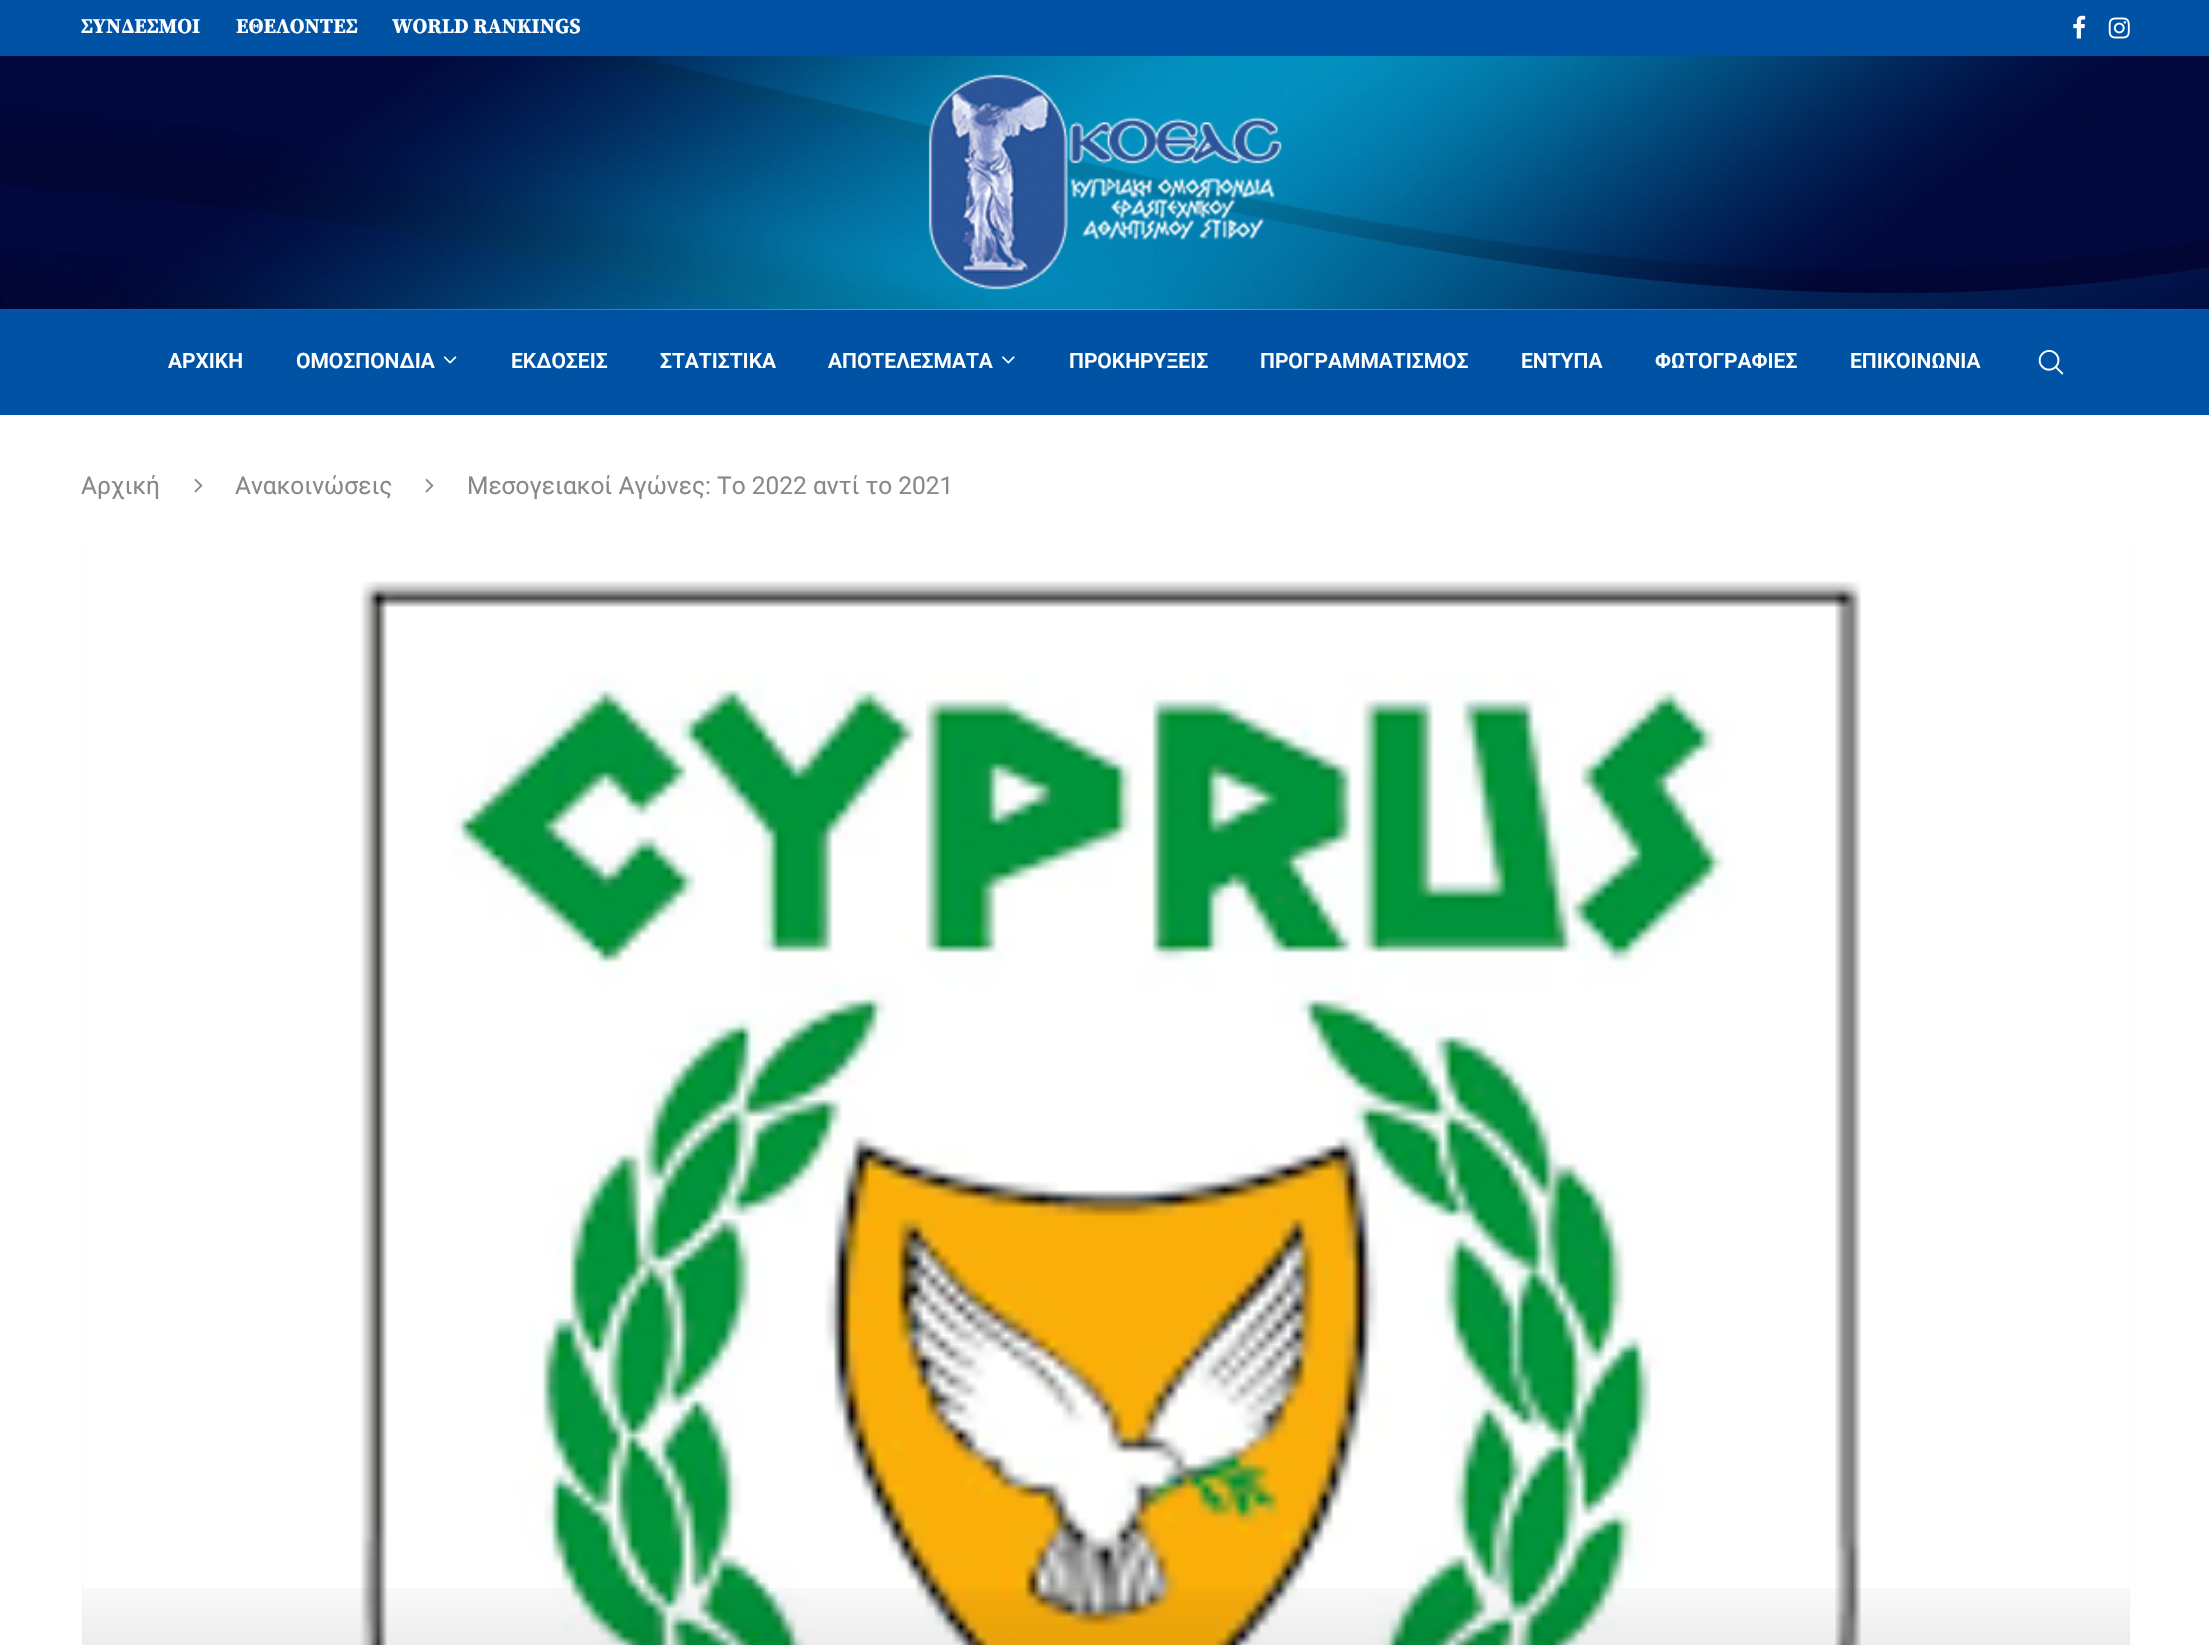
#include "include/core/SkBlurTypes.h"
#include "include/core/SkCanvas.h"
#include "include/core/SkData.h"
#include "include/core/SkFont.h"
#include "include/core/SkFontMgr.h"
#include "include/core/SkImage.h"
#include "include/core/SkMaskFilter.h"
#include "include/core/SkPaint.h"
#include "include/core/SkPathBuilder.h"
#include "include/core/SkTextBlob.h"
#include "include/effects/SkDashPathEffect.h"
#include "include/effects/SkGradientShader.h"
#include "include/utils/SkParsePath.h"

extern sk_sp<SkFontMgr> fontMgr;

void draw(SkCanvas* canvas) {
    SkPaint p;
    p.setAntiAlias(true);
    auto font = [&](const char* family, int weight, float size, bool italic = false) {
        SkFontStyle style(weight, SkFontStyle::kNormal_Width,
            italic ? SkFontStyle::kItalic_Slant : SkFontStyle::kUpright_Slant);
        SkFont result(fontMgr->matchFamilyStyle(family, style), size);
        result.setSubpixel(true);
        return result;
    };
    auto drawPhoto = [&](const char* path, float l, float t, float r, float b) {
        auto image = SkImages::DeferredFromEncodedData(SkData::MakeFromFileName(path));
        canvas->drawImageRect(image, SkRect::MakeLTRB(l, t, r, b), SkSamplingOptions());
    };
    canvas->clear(0xFFFFFFFF);
    p.setColor(0xFF0052A4);
    canvas->drawRect(SkRect::MakeLTRB(0, 0, 2209, 56), p);
    auto font1 = font("Source Serif Pro", 700, 21);
    p.setColor(0xFFFFFFFF);
    {
        const struct { const char* s; float x, y; } items[] = {
            {"ΣΥΝΔΕΣΜΟΙ", 81, 33},
            {"ΕΘΕΛΟΝΤΕΣ", 236, 33},
            {"WORLD RANKINGS", 392, 33},
        };
        for (auto [s, x, y] : items) {
            canvas->drawString(s, x, y, font1, p);
        }
    }
    drawPhoto("media/1.png", 2073, 15, 2086, 39);
    drawPhoto("media/2.png", 2108, 17, 2130, 39);
    drawPhoto("media/3.png", 0, 56, 2209, 310);
    drawPhoto("media/4.png", 928, 74, 1282, 290);
    p.setColor(0xFF0052A4);
    canvas->drawRect(SkRect::MakeLTRB(0, 310, 2209, 415), p);
    auto font2 = font("Roboto", 600, 21);
    p.setColor(0xFFFFFFFF);
    canvas->drawString("ΑΡΧΙΚΗ", 168, 368, font2, p);
    canvas->drawString("ΟΜΟΣΠΟΝΔΙΑ", 296, 368, font2, p);
    drawPhoto("media/5.png", 443, 356, 457, 364);
    {
        const struct { const char* s; float x, y; } items[] = {
            {"ΕΚΔΟΣΕΙΣ", 511, 368},
            {"ΣΤΑΤΙΣΤΙΚΑ", 660, 368},
            {"ΑΠΟΤΕΛΕΣΜΑΤΑ", 828, 368},
        };
        for (auto [s, x, y] : items) {
            canvas->drawString(s, x, y, font2, p);
        }
    }
    drawPhoto("media/6.png", 1002, 356, 1015, 364);
    {
        const struct { const char* s; float x, y; } items[] = {
            {"ΠΡΟΚΗΡΥΞΕΙΣ", 1069, 368},
            {"ΠΡΟΓΡΑΜΜΑΤΙΣΜΟΣ", 1260, 368},
            {"ΕΝΤΥΠΑ", 1521, 368},
            {"ΦΩΤΟΓΡΑΦΙΕΣ", 1655, 368},
            {"ΕΠΙΚΟΙΝΩΝΙΑ", 1850, 368},
        };
        for (auto [s, x, y] : items) {
            canvas->drawString(s, x, y, font2, p);
        }
    }
    drawPhoto("media/7.png", 2038, 350, 2064, 375);
    auto font3 = font("Roboto", 400, 24.5f);
    p.setColor(0xFF888888);
    canvas->drawString("Αρχική", 81, 494, font3, p);
    drawPhoto("media/8.png", 194, 478, 203, 493);
    canvas->drawString("Ανακοινώσεις", 235, 494, font3, p);
    drawPhoto("media/8.png", 425, 478, 434, 493);
    canvas->drawString("Μεσογειακοί Αγώνες: Το 2022 αντί το 2021", 467, 494, font3, p);
    p.setColor(0xFFF5F5F5);
    canvas->drawRect(SkRect::MakeLTRB(82, 539, 2130, 1645), p);
    drawPhoto("media/9.png", 82, 539, 2130, 1645);
    {
        const SkColor colors[] = {0x00000000, 0xB3000000};
        const float stops[] = {0.5f, 0.9f};
        const SkPoint ends[] = {{1106, 539}, {1106, 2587}};
        p.setShader(SkGradientShader::MakeLinear(ends, colors, stops, 2, SkTileMode::kClamp));
        p.setAlpha(255);
    }
    canvas->drawRect(SkRect::MakeLTRB(82, 1588, 2130, 1645), p);
}
